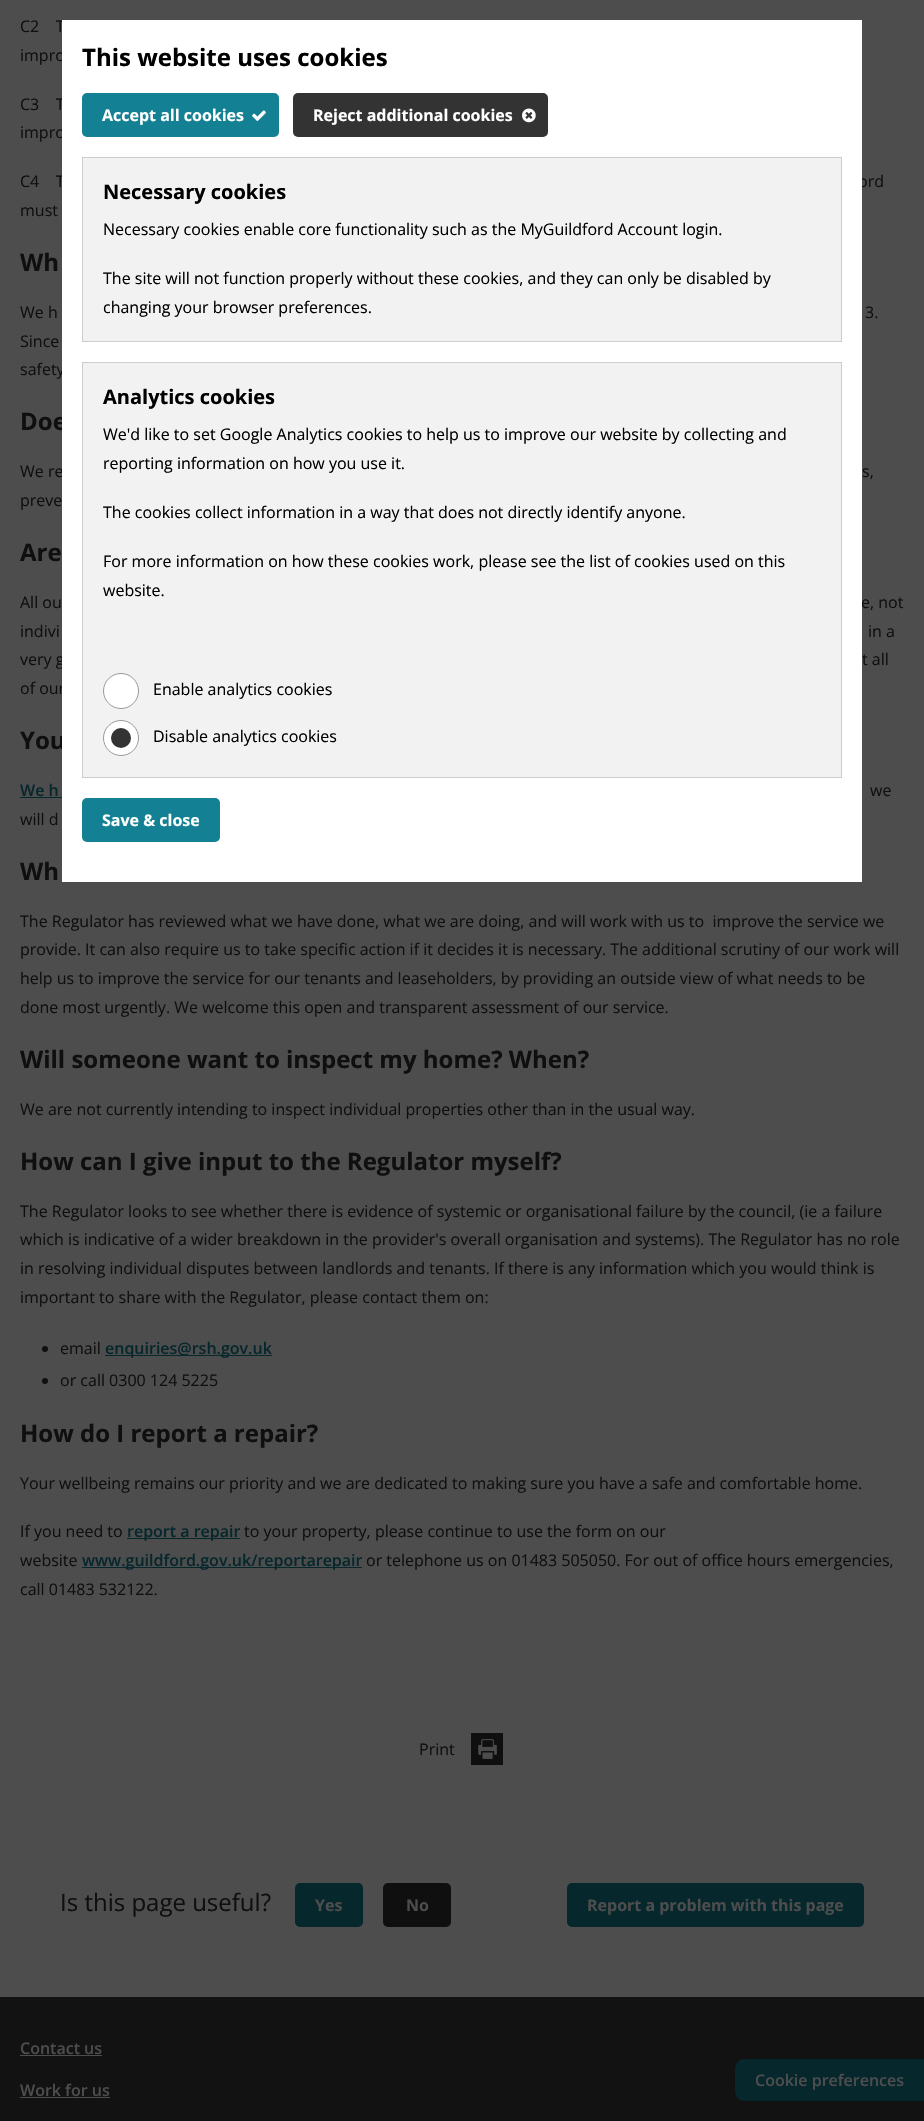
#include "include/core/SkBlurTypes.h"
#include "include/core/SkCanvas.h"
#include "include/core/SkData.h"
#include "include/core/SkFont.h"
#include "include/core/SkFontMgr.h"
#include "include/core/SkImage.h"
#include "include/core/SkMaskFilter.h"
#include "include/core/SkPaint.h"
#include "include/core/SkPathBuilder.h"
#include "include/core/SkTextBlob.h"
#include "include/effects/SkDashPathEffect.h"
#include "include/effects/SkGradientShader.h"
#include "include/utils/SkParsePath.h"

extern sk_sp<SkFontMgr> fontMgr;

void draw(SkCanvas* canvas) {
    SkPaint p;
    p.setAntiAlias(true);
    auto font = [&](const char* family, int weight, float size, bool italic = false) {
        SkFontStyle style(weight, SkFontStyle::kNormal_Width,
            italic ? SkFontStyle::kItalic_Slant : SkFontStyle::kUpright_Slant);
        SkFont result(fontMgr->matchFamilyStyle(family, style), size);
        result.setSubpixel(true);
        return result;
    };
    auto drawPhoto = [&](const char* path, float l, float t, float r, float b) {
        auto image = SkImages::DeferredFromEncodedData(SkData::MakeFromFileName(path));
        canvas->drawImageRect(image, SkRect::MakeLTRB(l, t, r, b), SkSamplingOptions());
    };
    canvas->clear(0xFF4D4D4D);
    auto font1 = font("Open Sans", 400, 16);
    p.setColor(0xFF0F0F0F);
    {
        const struct { const char* s; float x, y; } items[] = {
            {"C2    T", 20, 32},
            {"impro", 20, 61},
            {"C3    T", 20, 110},
            {"impro", 20, 138},
            {"C4    T", 20, 187},
            {"ord", 858, 187},
            {"must", 20, 216},
        };
        for (auto [s, x, y] : items) {
            canvas->drawString(s, x, y, font1, p);
        }
    }
    auto font2 = font("Open Sans", 700, 24);
    canvas->drawString("Wh", 20, 271, font2, p);
    {
        const struct { const char* s; float x, y; } items[] = {
            {"We h", 20, 318},
            {"3.", 865, 318},
            {"Since", 20, 347},
            {"safety", 20, 375},
        };
        for (auto [s, x, y] : items) {
            canvas->drawString(s, x, y, font1, p);
        }
    }
    canvas->drawString("Doe", 20, 430, font2, p);
    {
        const struct { const char* s; float x, y; } items[] = {
            {"We re", 20, 477},
            {"s,", 862, 477},
            {"preve", 20, 506},
        };
        for (auto [s, x, y] : items) {
            canvas->drawString(s, x, y, font1, p);
        }
    }
    canvas->drawString("Are", 20, 561, font2, p);
    {
        const struct { const char* s; float x, y; } items[] = {
            {"All ou", 20, 608},
            {"e, not", 861, 608},
            {"indivi", 20, 637},
            {"in a", 868, 637},
            {"very g", 20, 665},
            {"t all", 862, 665},
            {"of our", 20, 694},
        };
        for (auto [s, x, y] : items) {
            canvas->drawString(s, x, y, font1, p);
        }
    }
    canvas->drawString("You", 20, 749, font2, p);
    auto font3 = font("Open Sans", 600, 16);
    p.setColor(0xFF06272C);
    canvas->drawString("We h", 20, 796, font3, p);
    canvas->drawRect(SkRect::MakeLTRB(20, 797, 62, 798), p);
    p.setColor(0xFF0F0F0F);
    canvas->drawString("we", 870, 796, font1, p);
    canvas->drawString("will d", 20, 825, font1, p);
    canvas->drawString("Wh", 20, 880, font2, p);
    {
        const struct { const char* s; float x, y; } items[] = {
            {"The Regulator has reviewed what we have done, what we are doing, and will work with us to  improve the service we", 20, 927},
            {"provide. It can also require us to take specific action if it decides it is necessary. The additional scrutiny of our work will", 20, 955},
            {"help us to improve the service for our tenants and leaseholders, by providing an outside view of what needs to be", 20, 984},
            {"done most urgently. We welcome this open and transparent assessment of our service.", 20, 1013},
        };
        for (auto [s, x, y] : items) {
            canvas->drawString(s, x, y, font1, p);
        }
    }
    canvas->drawString("Will someone want to inspect my home? When?", 20, 1068, font2, p);
    canvas->drawString("We are not currently intending to inspect individual properties other than in the usual way.", 20, 1115, font1, p);
    canvas->drawString("How can I give input to the Regulator myself?", 20, 1170, font2, p);
    {
        const struct { const char* s; float x, y; } items[] = {
            {"The Regulator looks to see whether there is evidence of systemic or organisational failure by the council, (ie a failure", 20, 1217},
            {"which is indicative of a wider breakdown in the provider's overall organisation and systems). The Regulator has no role", 20, 1245},
            {"in resolving individual disputes between landlords and tenants. If there is any information which you would think is", 20, 1274},
            {"important to share with the Regulator, please contact them on:", 20, 1303},
        };
        for (auto [s, x, y] : items) {
            canvas->drawString(s, x, y, font1, p);
        }
    }
    canvas->drawCircle(45, 1349, 3, p);
    canvas->drawString("email", 60, 1354, font1, p);
    p.setColor(0xFF06272C);
    canvas->drawRect(SkRect::MakeLTRB(105, 1355, 272, 1356), p);
    canvas->drawString("enquiries@rsh.gov.uk", 105, 1354, font3, p);
    p.setColor(0xFF0F0F0F);
    canvas->drawCircle(45, 1381, 3, p);
    canvas->drawString("or call 0300 124 5225", 60, 1386, font1, p);
    canvas->drawString("How do I report a repair?", 20, 1442, font2, p);
    canvas->drawString("Your wellbeing remains our priority and we are dedicated to making sure you have a safe and comfortable home.", 20, 1489, font1, p);
    canvas->drawString("If you need to", 20, 1537, font1, p);
    p.setColor(0xFF06272C);
    canvas->drawRect(SkRect::MakeLTRB(127, 1538, 240, 1539), p);
    canvas->drawString("report a repair", 127, 1537, font3, p);
    p.setColor(0xFF0F0F0F);
    canvas->drawString("to your property, please continue to use the form on our", 244, 1537, font1, p);
    canvas->drawString("website", 20, 1566, font1, p);
    p.setColor(0xFF06272C);
    canvas->drawRect(SkRect::MakeLTRB(82, 1567, 362, 1568), p);
    canvas->drawString("www.guildford.gov.uk/reportarepair", 82, 1566, font3, p);
    p.setColor(0xFF0F0F0F);
    canvas->drawString("or telephone us on 01483 505050. For out of office hours emergencies,", 366, 1566, font1, p);
    canvas->drawString("call 01483 532122.", 20, 1595, font1, p);
    p.setColor(0xFFFFFFFF);
    canvas->drawRect(SkRect::MakeLTRB(62, 20, 862, 882), p);
    p.setColor(0xFF000000);
    canvas->drawString("This website uses cookies", 82, 66, font2, p);
    p.setColor(0xFF138193);
    canvas->drawRoundRect(SkRect::MakeLTRB(82, 93, 279, 137), 5, 5, p);
    auto font4 = font("Open Sans", 700, 16);
    p.setColor(0xFFFFFFFF);
    canvas->drawString("Accept all cookies", 102, 121, font4, p);
    drawPhoto("media/1.png", 252, 110, 266, 121);
    p.setColor(0xFF333333);
    canvas->drawRoundRect(SkRect::MakeLTRB(293, 93, 548, 137), 5, 5, p);
    p.setColor(0xFFFFFFFF);
    canvas->drawString("Reject additional cookies", 313, 121, font4, p);
    drawPhoto("media/2.png", 522, 108, 536, 123);
    p.setColor(0xFFF2F2F2);
    canvas->drawRect(SkRect::MakeLTRB(82.5f, 157.5f, 841.5f, 341.5f), p);
    p.setStyle(SkPaint::kStroke_Style);
    p.setStrokeWidth(1);
    p.setColor(0xFFCCCCCC);
    canvas->drawRect(SkRect::MakeLTRB(82.5f, 157.5f, 841.5f, 341.5f), p);
    auto font5 = font("Open Sans", 700, 20);
    p.setStyle(SkPaint::kFill_Style);
    p.setColor(0xFF000000);
    canvas->drawString("Necessary cookies", 103, 199, font5, p);
    {
        const struct { const char* s; float x, y; } items[] = {
            {"Necessary cookies enable core functionality such as the MyGuildford Account login.", 103, 235},
            {"The site will not function properly without these cookies, and they can only be disabled by", 103, 284},
            {"changing your browser preferences.", 103, 313},
        };
        for (auto [s, x, y] : items) {
            canvas->drawString(s, x, y, font1, p);
        }
    }
    p.setColor(0xFFF2F2F2);
    canvas->drawRect(SkRect::MakeLTRB(82.5f, 362.5f, 841.5f, 777.5f), p);
    p.setStyle(SkPaint::kStroke_Style);
    p.setColor(0xFFCCCCCC);
    canvas->drawRect(SkRect::MakeLTRB(82.5f, 362.5f, 841.5f, 777.5f), p);
    p.setStyle(SkPaint::kFill_Style);
    p.setColor(0xFF000000);
    canvas->drawString("Analytics cookies", 103, 404, font5, p);
    {
        const struct { const char* s; float x, y; } items[] = {
            {"We'd like to set Google Analytics cookies to help us to improve our website by collecting and", 103, 440},
            {"reporting information on how you use it.", 103, 469},
            {"The cookies collect information in a way that does not directly identify anyone.", 103, 518},
            {"For more information on how these cookies work, please see the list of cookies used on this", 103, 567},
            {"website.", 103, 596},
        };
        for (auto [s, x, y] : items) {
            canvas->drawString(s, x, y, font1, p);
        }
    }
    p.setColor(0xFFFFFFFF);
    canvas->drawCircle(121, 691, 17.5f, p);
    p.setStyle(SkPaint::kStroke_Style);
    p.setColor(0xFF999999);
    canvas->drawCircle(121, 691, 17.5f, p);
    p.setStyle(SkPaint::kFill_Style);
    p.setColor(0xFF000000);
    canvas->drawString("Enable analytics cookies", 153, 695, font1, p);
    p.setColor(0xFFFFFFFF);
    canvas->drawCircle(121, 738, 17.5f, p);
    p.setStyle(SkPaint::kStroke_Style);
    p.setColor(0xFF999999);
    canvas->drawCircle(121, 738, 17.5f, p);
    p.setStyle(SkPaint::kFill_Style);
    p.setColor(0xFF333333);
    canvas->drawCircle(121, 738, 10, p);
    p.setColor(0xFF000000);
    canvas->drawString("Disable analytics cookies", 153, 742, font1, p);
    p.setColor(0xFF138193);
    canvas->drawRoundRect(SkRect::MakeLTRB(82, 798, 220, 842), 5, 5, p);
    p.setColor(0xFFFFFFFF);
    canvas->drawString("Save & close", 102, 826, font4, p);
    p.setColor(0xFF0F0F0F);
    canvas->drawString("Print", 419, 1755, font1, p);
    drawPhoto("media/3.png", 471, 1733, 503, 1765);
    auto font6 = font("Open Sans", 400, 24);
    canvas->drawString("Is this page useful?", 60, 1911, font6, p);
    p.setColor(0xFF06272C);
    canvas->drawRoundRect(SkRect::MakeLTRB(295, 1883, 363, 1927), 5, 5, p);
    p.setColor(0xFF4D4D4D);
    canvas->drawString("Yes", 315, 1911, font4, p);
    p.setColor(0xFF0F0F0F);
    canvas->drawRoundRect(SkRect::MakeLTRB(383, 1883, 451, 1927), 5, 5, p);
    p.setColor(0xFF4D4D4D);
    canvas->drawString("No", 406, 1911, font4, p);
    p.setColor(0xFF06272C);
    canvas->drawRoundRect(SkRect::MakeLTRB(567, 1883, 864, 1927), 5, 5, p);
    p.setColor(0xFF4D4D4D);
    canvas->drawString("Report a problem with this page", 587, 1911, font4, p);
    p.setColor(0xFF121212);
    canvas->drawRect(SkRect::MakeLTRB(0, 1997, 924, 2121), p);
    p.setColor(0xFF4D4D4D);
    canvas->drawString("Contact us", 20, 2054, font3, p);
    canvas->drawRect(SkRect::MakeLTRB(20, 2055, 102, 2056), p);
    canvas->drawString("Work for us", 20, 2096, font3, p);
    canvas->drawRect(SkRect::MakeLTRB(20, 2097, 110, 2098), p);
    p.setColor(0xFF06272C);
    canvas->drawPath(SkPathBuilder().moveTo(745, 2059).lineTo(924, 2059).lineTo(924, 2101).lineTo(745, 2101).cubicTo(739.5f, 2101, 735, 2096.5f, 735, 2091).lineTo(735, 2069).cubicTo(735, 2063.5f, 739.5f, 2059, 745, 2059).close().detach(), p);
    p.setColor(0xFF4D4D4D);
    canvas->drawString("Cookie preferences", 755, 2086, font3, p);
}
